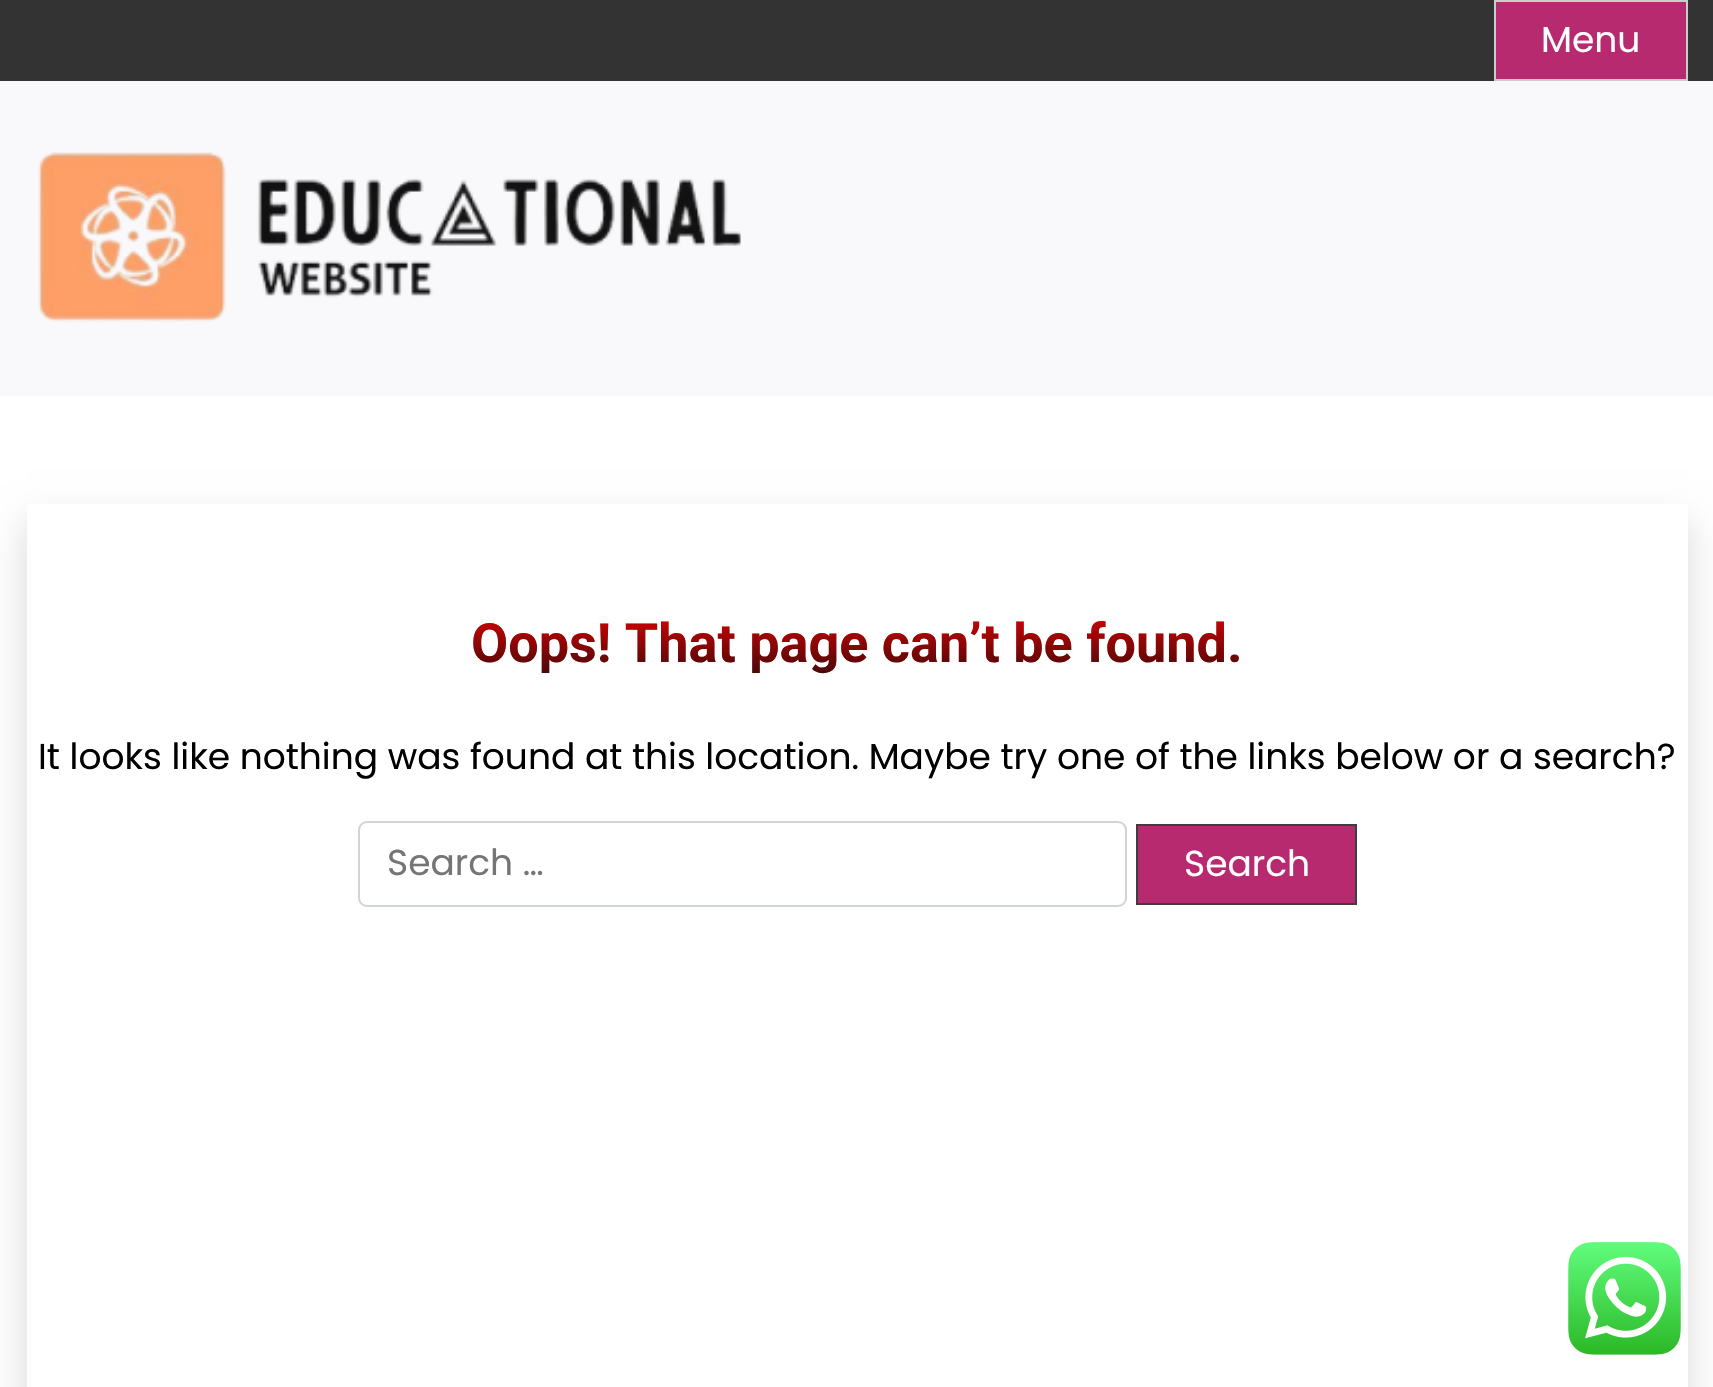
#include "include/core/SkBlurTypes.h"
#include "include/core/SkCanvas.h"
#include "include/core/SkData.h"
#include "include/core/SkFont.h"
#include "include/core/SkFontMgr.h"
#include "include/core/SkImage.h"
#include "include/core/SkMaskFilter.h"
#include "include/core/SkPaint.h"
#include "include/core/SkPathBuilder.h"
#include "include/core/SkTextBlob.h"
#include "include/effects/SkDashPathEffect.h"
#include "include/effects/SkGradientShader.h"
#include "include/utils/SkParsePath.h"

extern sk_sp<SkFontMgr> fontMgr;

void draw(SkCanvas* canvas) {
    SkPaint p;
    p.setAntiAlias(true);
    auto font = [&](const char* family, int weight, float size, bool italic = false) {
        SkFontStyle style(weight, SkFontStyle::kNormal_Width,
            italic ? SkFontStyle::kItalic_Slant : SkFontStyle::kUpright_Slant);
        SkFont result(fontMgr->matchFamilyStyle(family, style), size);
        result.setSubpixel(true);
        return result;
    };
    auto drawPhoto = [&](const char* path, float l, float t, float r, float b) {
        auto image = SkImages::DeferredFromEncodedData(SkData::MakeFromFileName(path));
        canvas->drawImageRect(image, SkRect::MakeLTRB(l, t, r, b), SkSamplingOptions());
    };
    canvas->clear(0xFFFFFFFF);
    p.setColor(0xFF333333);
    canvas->drawRect(SkRect::MakeLTRB(0, 0, 1713, 81), p);
    p.setColor(0xFFB82A6F);
    canvas->drawRect(SkRect::MakeLTRB(1495, 1, 1687, 80), p);
    p.setStyle(SkPaint::kStroke_Style);
    p.setStrokeWidth(2);
    p.setColor(0xFFCCCCCC);
    canvas->drawRect(SkRect::MakeLTRB(1495, 1, 1687, 80), p);
    auto font1 = font("Poppins", 400, 36);
    p.setStyle(SkPaint::kFill_Style);
    p.setColor(0xFFFFFFFF);
    canvas->drawString("Menu", 1541, 52, font1, p);
    p.setColor(0xFFF9F9FC);
    canvas->drawRect(SkRect::MakeLTRB(0, 81, 1713, 396), p);
    drawPhoto("media/1.png", 38, 152, 741, 322);
    canvas->save();
    canvas->clipPath(SkPathBuilder(SkPathFillType::kEvenOdd).moveTo(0, 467).lineTo(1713, 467).lineTo(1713, 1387).lineTo(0, 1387).close().moveTo(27, 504).lineTo(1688, 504).lineTo(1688, 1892).lineTo(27, 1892).close().detach(), true);
    p.setColor(0x26000000);
    p.setMaskFilter(SkMaskFilter::MakeBlur(kNormal_SkBlurStyle, 18));
    canvas->drawRect(SkRect::MakeLTRB(27, 522, 1688, 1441), p);
    p.setMaskFilter(nullptr);
    canvas->restore();
    auto font2 = font("Roboto", 700, 54);
    {
        const SkColor colors[] = {0xFFD60303, 0xFF410909};
        const float stops[] = {0, 1};
        const SkPoint ends[] = {{857, 612}, {857, 677}};
        p.setShader(SkGradientShader::MakeLinear(ends, colors, stops, 2, SkTileMode::kClamp));
        p.setAlpha(255);
    }
    canvas->drawString("Oops! That page can’t be found.", 471, 662, font2, p);
    p.setShader(nullptr);
    p.setColor(0xFF000000);
    canvas->drawString("It looks like nothing was found at this location. Maybe try one of the links below or a search?", 38, 769, font1, p);
    p.setStyle(SkPaint::kStroke_Style);
    p.setColor(0xFFCED4DA);
    canvas->drawRoundRect(SkRect::MakeLTRB(359, 822, 1126, 906), 8, 8, p);
    p.setStyle(SkPaint::kFill_Style);
    p.setColor(0xFF757575);
    canvas->drawString("Search …", 387, 875, font1, p);
    p.setColor(0xFFB82A6F);
    canvas->drawRect(SkRect::MakeLTRB(1137, 825, 1356, 904), p);
    p.setStyle(SkPaint::kStroke_Style);
    p.setColor(0xFF3C3E41);
    canvas->drawRect(SkRect::MakeLTRB(1137, 825, 1356, 904), p);
    p.setStyle(SkPaint::kFill_Style);
    p.setColor(0xFFFFFFFF);
    canvas->drawString("Search", 1184, 876, font1, p);
    drawPhoto("media/2.png", 1568, 1242, 1681, 1355);
}
